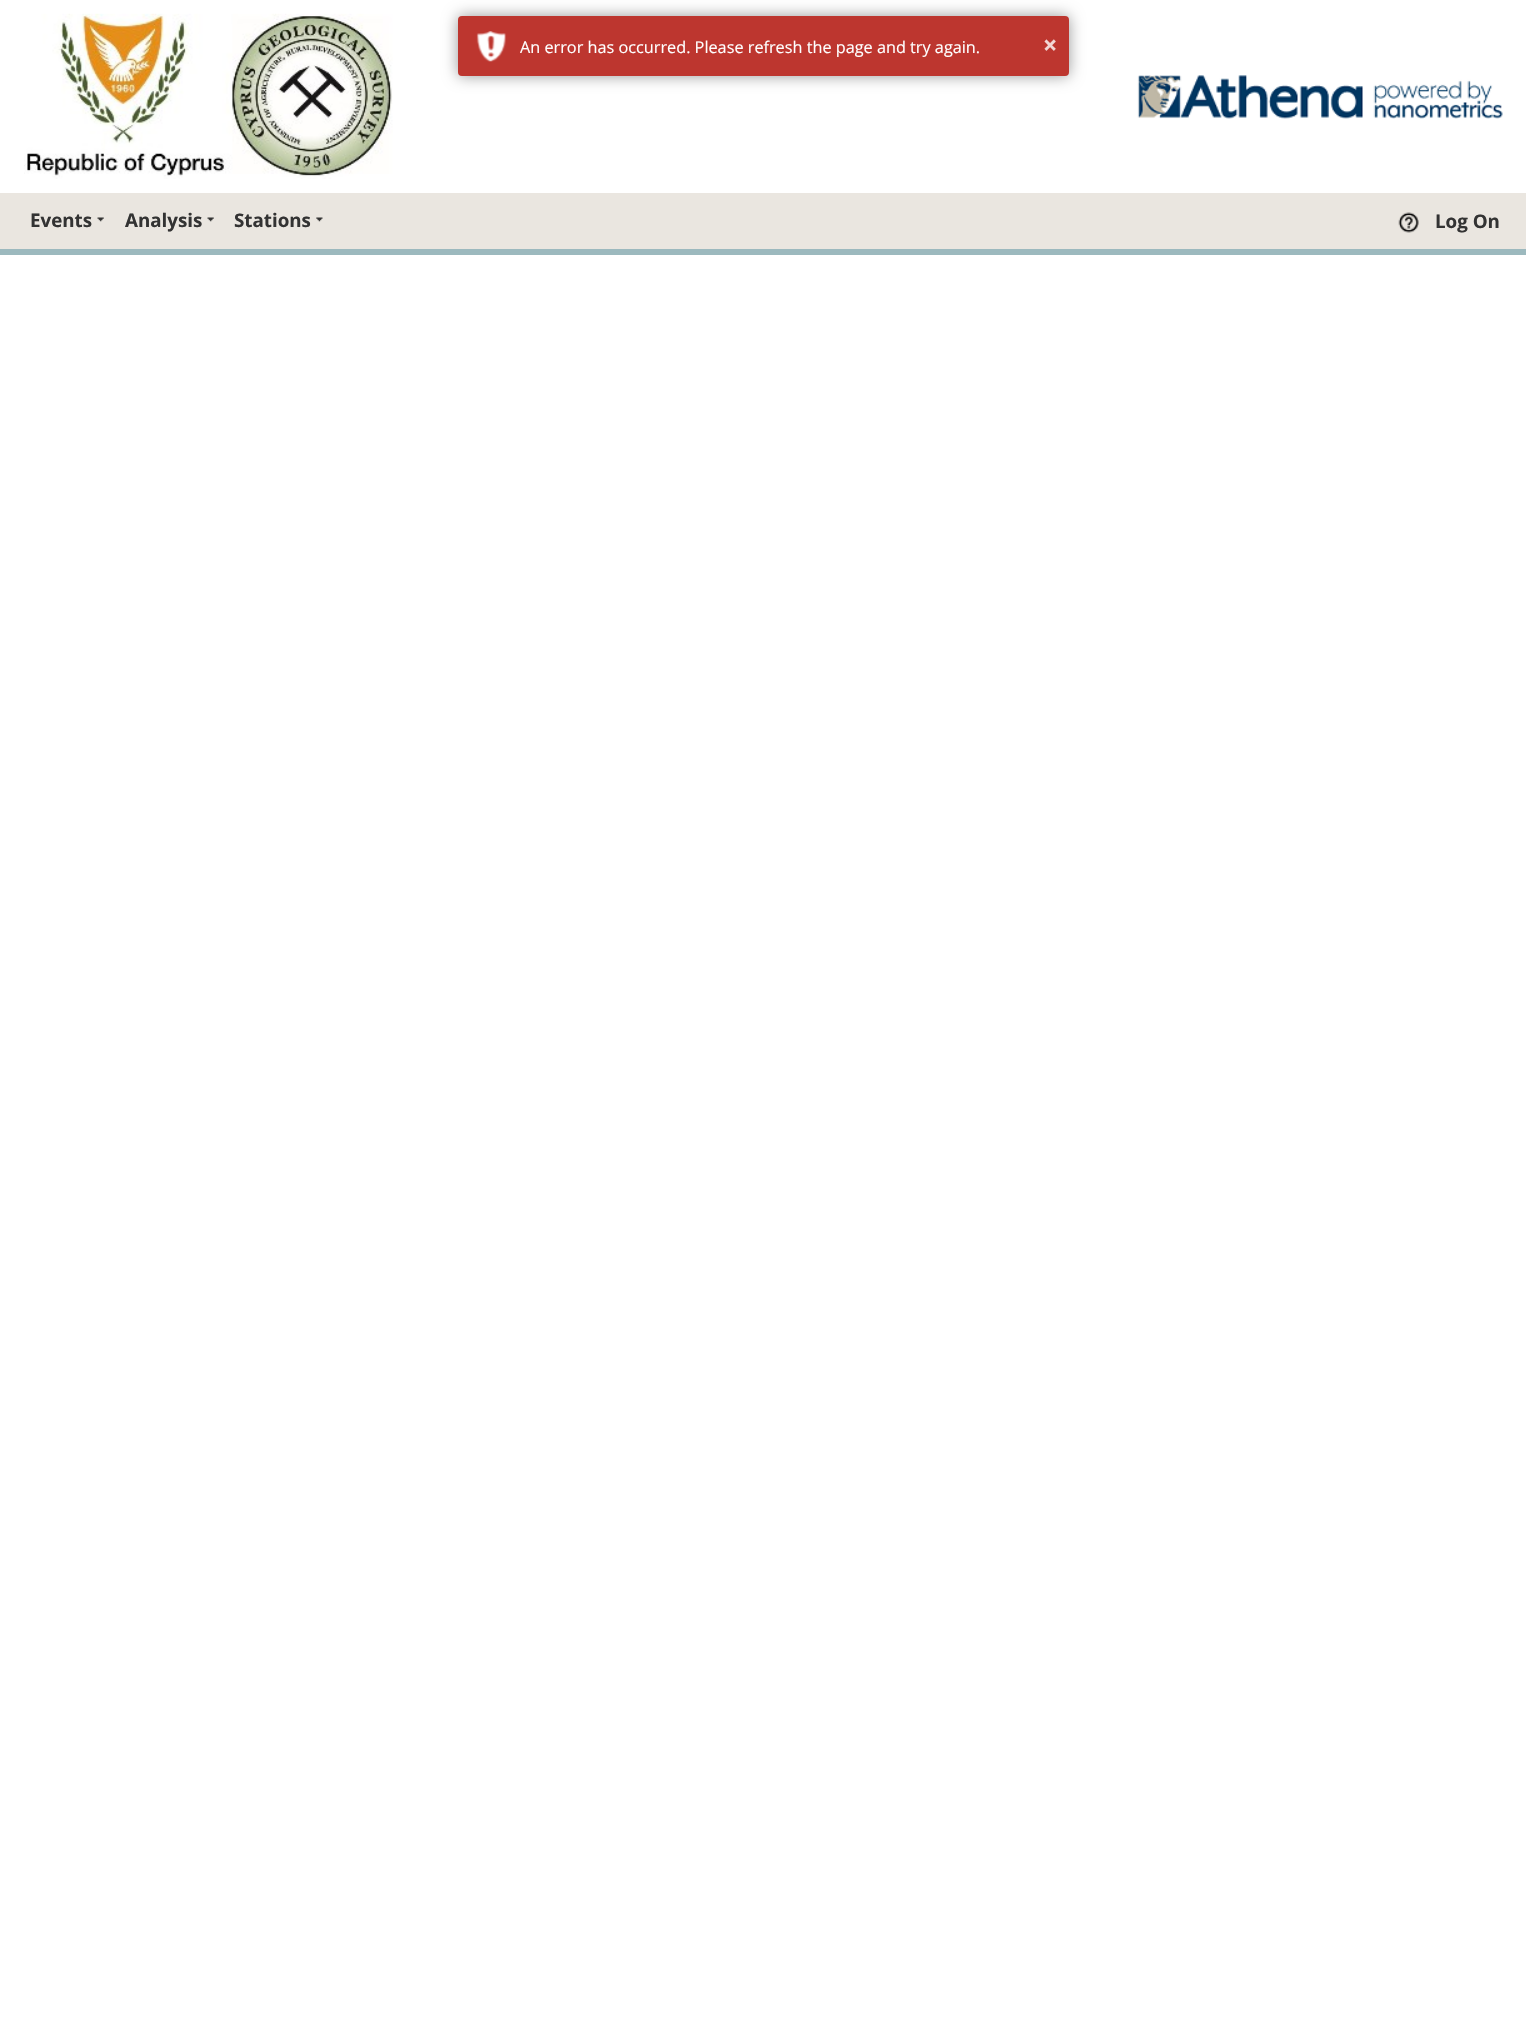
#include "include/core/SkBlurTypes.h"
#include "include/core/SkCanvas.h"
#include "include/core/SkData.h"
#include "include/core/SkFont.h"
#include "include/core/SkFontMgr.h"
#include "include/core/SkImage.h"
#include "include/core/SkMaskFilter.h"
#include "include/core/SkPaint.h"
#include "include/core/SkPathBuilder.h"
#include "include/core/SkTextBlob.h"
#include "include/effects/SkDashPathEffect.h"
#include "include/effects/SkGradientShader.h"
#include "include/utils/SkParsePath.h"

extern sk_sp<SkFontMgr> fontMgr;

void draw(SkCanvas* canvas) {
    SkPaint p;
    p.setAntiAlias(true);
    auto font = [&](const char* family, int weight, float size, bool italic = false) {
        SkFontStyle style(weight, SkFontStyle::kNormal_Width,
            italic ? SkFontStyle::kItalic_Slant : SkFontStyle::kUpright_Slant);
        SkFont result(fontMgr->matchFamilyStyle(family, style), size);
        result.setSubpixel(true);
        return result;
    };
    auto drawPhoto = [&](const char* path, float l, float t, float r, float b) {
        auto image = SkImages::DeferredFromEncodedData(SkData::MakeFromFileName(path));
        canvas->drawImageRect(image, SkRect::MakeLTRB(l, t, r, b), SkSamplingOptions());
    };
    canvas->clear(0xFFFFFFFF);
    p.setColor(0xFF999999);
    p.setMaskFilter(SkMaskFilter::MakeBlur(kNormal_SkBlurStyle, 7.5f));
    canvas->drawRoundRect(SkRect::MakeLTRB(458, 16, 1069, 76), 4, 4, p);
    p.setMaskFilter(nullptr);
    p.setColor(0xFFBD362F);
    canvas->drawRoundRect(SkRect::MakeLTRB(458, 16, 1069, 76), 4, 4, p);
    drawPhoto("media/1.png", 476, 31, 506, 62);
    auto font1 = font("Open Sans", 400, 16.25f);
    p.setColor(0xFFFFFFFF);
    canvas->drawString("An error has occurred. Please refresh the page and try again.", 520, 53, font1, p);
    auto font2 = font("Open Sans", 700, 25);
    p.setColor(0xFFF2D7D5);
    canvas->drawString("×", 1043, 54, font2, p);
    drawPhoto("media/2.png", 24, 13, 393, 179);
    drawPhoto("media/3.png", 1137, 75, 1503, 119);
    p.setColor(0xFFEAE6E0);
    canvas->drawRect(SkRect::MakeLTRB(0, 193, 1526, 249), p);
    p.setColor(0xFF9CB9BE);
    canvas->drawRect(SkRect::MakeLTRB(0, 249, 1526, 255), p);
    auto font3 = font("Open Sans", 700, 18.75f);
    p.setColor(0xFF333333);
    canvas->drawString("Events", 30, 227, font3, p);
    drawPhoto("media/4.png", 97, 217, 104, 222);
    canvas->drawString("Analysis", 125, 227, font3, p);
    drawPhoto("media/4.png", 207, 217, 214, 222);
    canvas->drawString("Stations", 234, 227, font3, p);
    drawPhoto("media/5.png", 316, 217, 323, 222);
    drawPhoto("media/6.png", 1398, 212, 1419, 233);
    canvas->drawString("Log On", 1435, 228, font3, p);
}
